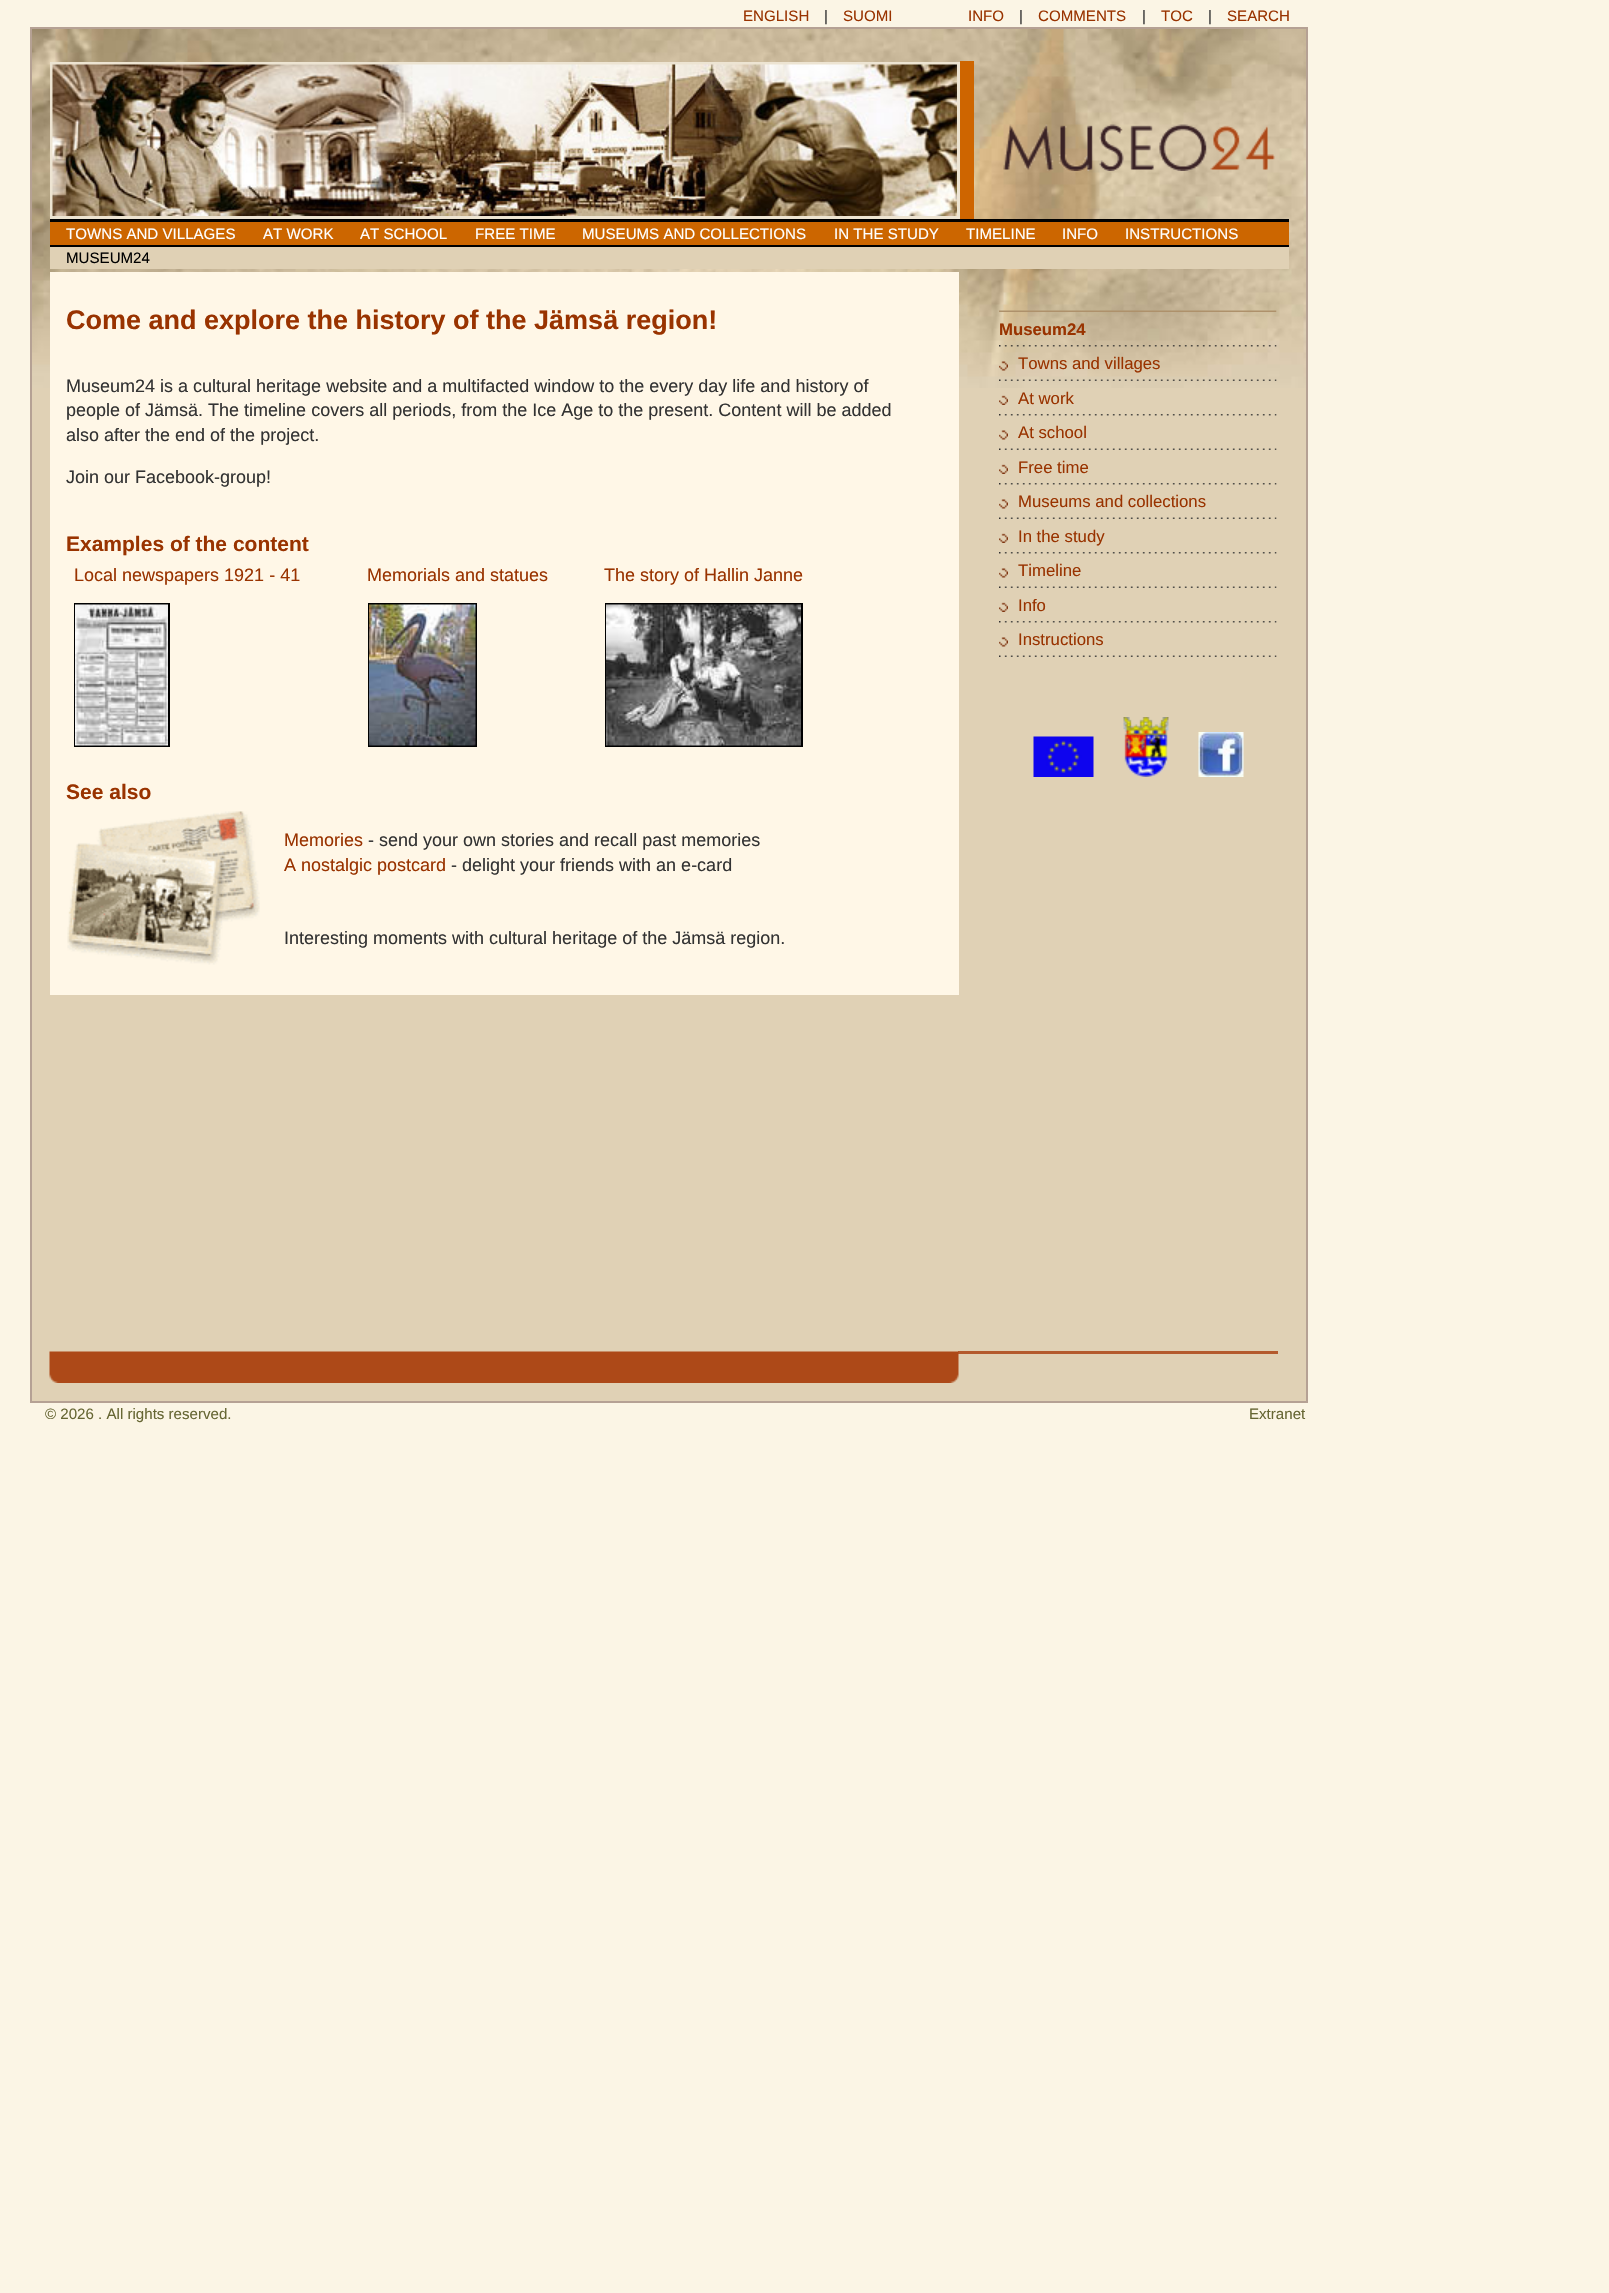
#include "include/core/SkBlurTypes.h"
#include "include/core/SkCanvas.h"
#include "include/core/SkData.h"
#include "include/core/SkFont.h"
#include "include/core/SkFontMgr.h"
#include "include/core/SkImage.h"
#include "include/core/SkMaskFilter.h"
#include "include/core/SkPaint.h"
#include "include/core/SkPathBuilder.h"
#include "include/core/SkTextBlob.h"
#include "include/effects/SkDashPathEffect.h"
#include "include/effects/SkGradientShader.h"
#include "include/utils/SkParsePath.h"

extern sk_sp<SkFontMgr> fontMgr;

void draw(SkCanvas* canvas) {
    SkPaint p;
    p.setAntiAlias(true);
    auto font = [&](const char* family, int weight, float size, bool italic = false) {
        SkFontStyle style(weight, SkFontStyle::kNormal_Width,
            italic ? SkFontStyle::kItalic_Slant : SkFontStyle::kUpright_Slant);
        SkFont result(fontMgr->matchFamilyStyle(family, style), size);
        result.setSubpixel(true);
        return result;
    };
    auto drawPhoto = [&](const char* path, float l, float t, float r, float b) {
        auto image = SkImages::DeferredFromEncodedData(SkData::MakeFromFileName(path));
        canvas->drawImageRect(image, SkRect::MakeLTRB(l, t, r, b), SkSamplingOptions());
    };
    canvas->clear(0xFFFBF5E5);
    auto font1 = font("Liberation Sans", 400, 15.1f);
    p.setColor(0xFF993300);
    canvas->drawString("ENGLISH", 743, 21, font1, p);
    p.setColor(0xFF333333);
    canvas->drawString("|", 824, 21, font1, p);
    p.setColor(0xFF993300);
    canvas->drawString("SUOMI", 843, 21, font1, p);
    canvas->drawString("INFO", 968, 21, font1, p);
    p.setColor(0xFF333333);
    canvas->drawString("|", 1019, 21, font1, p);
    p.setColor(0xFF993300);
    canvas->drawString("COMMENTS", 1038, 21, font1, p);
    p.setColor(0xFF333333);
    canvas->drawString("|", 1142, 21, font1, p);
    p.setColor(0xFF993300);
    canvas->drawString("TOC", 1161, 21, font1, p);
    p.setColor(0xFF333333);
    canvas->drawString("|", 1208, 21, font1, p);
    p.setColor(0xFF993300);
    canvas->drawString("SEARCH", 1227, 21, font1, p);
    p.setColor(0xFFE0D1B5);
    canvas->drawRect(SkRect::MakeLTRB(32, 388, 1306, 1401), p);
    drawPhoto("media/1.png", 32, 29, 1306, 388);
    p.setStyle(SkPaint::kStroke_Style);
    p.setStrokeWidth(2);
    p.setColor(0xFFB5A194);
    canvas->drawRect(SkRect::MakeLTRB(31, 28, 1307, 1402), p);
    p.setStyle(SkPaint::kFill_Style);
    {
        const struct { float l, t, r, b; SkColor color; } items[] = {
            {50, 62, 957, 65, 0xFFEDE4D2},
            {960, 61, 974, 219, 0xFFCE6500},
            {50, 216, 957, 219, 0xFFEDE4D2},
            {50, 62, 53, 219, 0xFFEDE4D2},
        };
        for (auto [l, t, r, b, color] : items) {
            p.setColor(color);
            canvas->drawRect(SkRect::MakeLTRB(l, t, r, b), p);
        }
    }
    drawPhoto("media/2.png", 52, 64, 957, 216);
    canvas->drawRect(SkRect::MakeLTRB(957, 62, 960, 219), p);
    drawPhoto("media/3.png", 1003, 124, 1275, 171);
    p.setColor(0xFFCC6600);
    canvas->drawRect(SkRect::MakeLTRB(50, 222, 1289, 245), p);
    p.setColor(0xFF000000);
    canvas->drawRect(SkRect::MakeLTRB(50, 219, 1289, 222), p);
    p.setColor(0xFFFFFFFF);
    {
        const struct { const char* s; float x, y; } items[] = {
            {"TOWNS AND VILLAGES", 66, 239},
            {"AT WORK", 263, 239},
            {"AT SCHOOL", 360, 239},
            {"FREE TIME", 475, 239},
            {"MUSEUMS AND COLLECTIONS", 582, 239},
            {"IN THE STUDY", 834, 239},
            {"TIMELINE", 966, 239},
            {"INFO", 1062, 239},
            {"INSTRUCTIONS", 1125, 239},
        };
        for (auto [s, x, y] : items) {
            canvas->drawString(s, x, y, font1, p);
        }
    }
    p.setColor(0xFFE0D1B5);
    canvas->drawRect(SkRect::MakeLTRB(50, 247, 1289, 269), p);
    p.setColor(0xFF000000);
    canvas->drawRect(SkRect::MakeLTRB(50, 245, 1289, 247), p);
    canvas->drawString("MUSEUM24", 66, 263, font1, p);
    p.setColor(0xFFFFF7E7);
    canvas->drawRect(SkRect::MakeLTRB(50, 272, 959, 995), p);
    auto font2 = font("Liberation Sans", 700, 27);
    p.setColor(0xFF993300);
    canvas->drawString("Come and explore the history of the Jämsä region!", 66, 329, font2, p);
    auto font3 = font("Liberation Sans", 400, 18);
    p.setColor(0xFF333333);
    {
        const struct { const char* s; float x, y; } items[] = {
            {"Museum24 is a cultural heritage website and a multifacted window to the every day life and history of", 66, 392},
            {"people of Jämsä. The timeline covers all periods, from the Ice Age to the present. Content will be added", 66, 416},
            {"also after the end of the project.", 66, 441},
            {"Join our Facebook-group!", 66, 483},
        };
        for (auto [s, x, y] : items) {
            canvas->drawString(s, x, y, font3, p);
        }
    }
    auto font4 = font("Liberation Sans", 700, 21);
    p.setColor(0xFF993300);
    canvas->drawString("Examples of the content", 66, 551, font4, p);
    {
        const struct { const char* s; float x, y; } items[] = {
            {"Local newspapers 1921 - 41", 74, 581},
            {"Memorials and statues", 367, 581},
            {"The story of Hallin Janne", 604, 581},
        };
        for (auto [s, x, y] : items) {
            canvas->drawString(s, x, y, font3, p);
        }
    }
    p.setStyle(SkPaint::kStroke_Style);
    p.setColor(0xFF000000);
    canvas->drawRect(SkRect::MakeLTRB(75, 604, 169, 746), p);
    drawPhoto("media/4.png", 75, 604, 168, 746);
    canvas->drawRect(SkRect::MakeLTRB(369, 604, 476, 746), p);
    drawPhoto("media/5.png", 369, 604, 476, 746);
    canvas->drawRect(SkRect::MakeLTRB(606, 604, 802, 746), p);
    drawPhoto("media/6.png", 606, 604, 801, 746);
    p.setStyle(SkPaint::kFill_Style);
    p.setColor(0xFF993300);
    canvas->drawString("See also", 66, 799, font4, p);
    drawPhoto("media/7.png", 67, 811, 260, 965);
    canvas->drawString("Memories", 284, 846, font3, p);
    p.setColor(0xFF333333);
    canvas->drawString("- send your own stories and recall past memories", 368, 846, font3, p);
    p.setColor(0xFF993300);
    canvas->drawString("A nostalgic postcard", 284, 871, font3, p);
    p.setColor(0xFF333333);
    canvas->drawString("- delight your friends with an e-card", 451, 871, font3, p);
    canvas->drawString("Interesting moments with cultural heritage of the Jämsä region.", 284, 944, font3, p);
    drawPhoto("media/8.png", 999, 310, 1277, 312);
    auto font5 = font("Liberation Sans", 700, 16.75f);
    p.setColor(0xFF993300);
    canvas->drawString("Museum24", 999, 335, font5, p);
    drawPhoto("media/9.png", 999, 345, 1277, 347);
    drawPhoto("media/10.png", 999, 361, 1008, 371);
    auto font6 = font("Liberation Sans", 400, 16.75f);
    canvas->drawString("Towns and villages", 1018, 369, font6, p);
    drawPhoto("media/11.png", 999, 379, 1277, 381);
    drawPhoto("media/12.png", 999, 395, 1008, 405);
    canvas->drawString("At work", 1018, 404, font6, p);
    drawPhoto("media/13.png", 999, 414, 1277, 416);
    drawPhoto("media/14.png", 999, 430, 1008, 440);
    canvas->drawString("At school", 1018, 438, font6, p);
    drawPhoto("media/15.png", 999, 448, 1277, 450);
    drawPhoto("media/12.png", 999, 464, 1008, 474);
    canvas->drawString("Free time", 1018, 473, font6, p);
    drawPhoto("media/13.png", 999, 483, 1277, 485);
    drawPhoto("media/14.png", 999, 499, 1008, 509);
    canvas->drawString("Museums and collections", 1018, 507, font6, p);
    drawPhoto("media/15.png", 999, 517, 1277, 519);
    drawPhoto("media/12.png", 999, 533, 1008, 543);
    canvas->drawString("In the study", 1018, 542, font6, p);
    drawPhoto("media/13.png", 999, 552, 1277, 554);
    drawPhoto("media/14.png", 999, 568, 1008, 578);
    canvas->drawString("Timeline", 1018, 576, font6, p);
    drawPhoto("media/15.png", 999, 586, 1277, 588);
    drawPhoto("media/12.png", 999, 602, 1008, 612);
    canvas->drawString("Info", 1018, 611, font6, p);
    drawPhoto("media/13.png", 999, 621, 1277, 623);
    drawPhoto("media/14.png", 999, 637, 1008, 647);
    canvas->drawString("Instructions", 1018, 645, font6, p);
    drawPhoto("media/15.png", 999, 655, 1277, 657);
    drawPhoto("media/16.png", 1033, 736, 1094, 777);
    drawPhoto("media/17.png", 1123, 717, 1169, 777);
    drawPhoto("media/18.png", 1198, 732, 1244, 777);
    drawPhoto("media/19.png", 49, 1351, 959, 1383);
    p.setColor(0xDEAD4818);
    canvas->drawRect(SkRect::MakeLTRB(958, 1351, 1278, 1354), p);
    p.setColor(0xFF666633);
    canvas->drawString("© 2026 . All rights reserved.", 45, 1419, font1, p);
    canvas->drawString("Extranet", 1249, 1419, font1, p);
}
